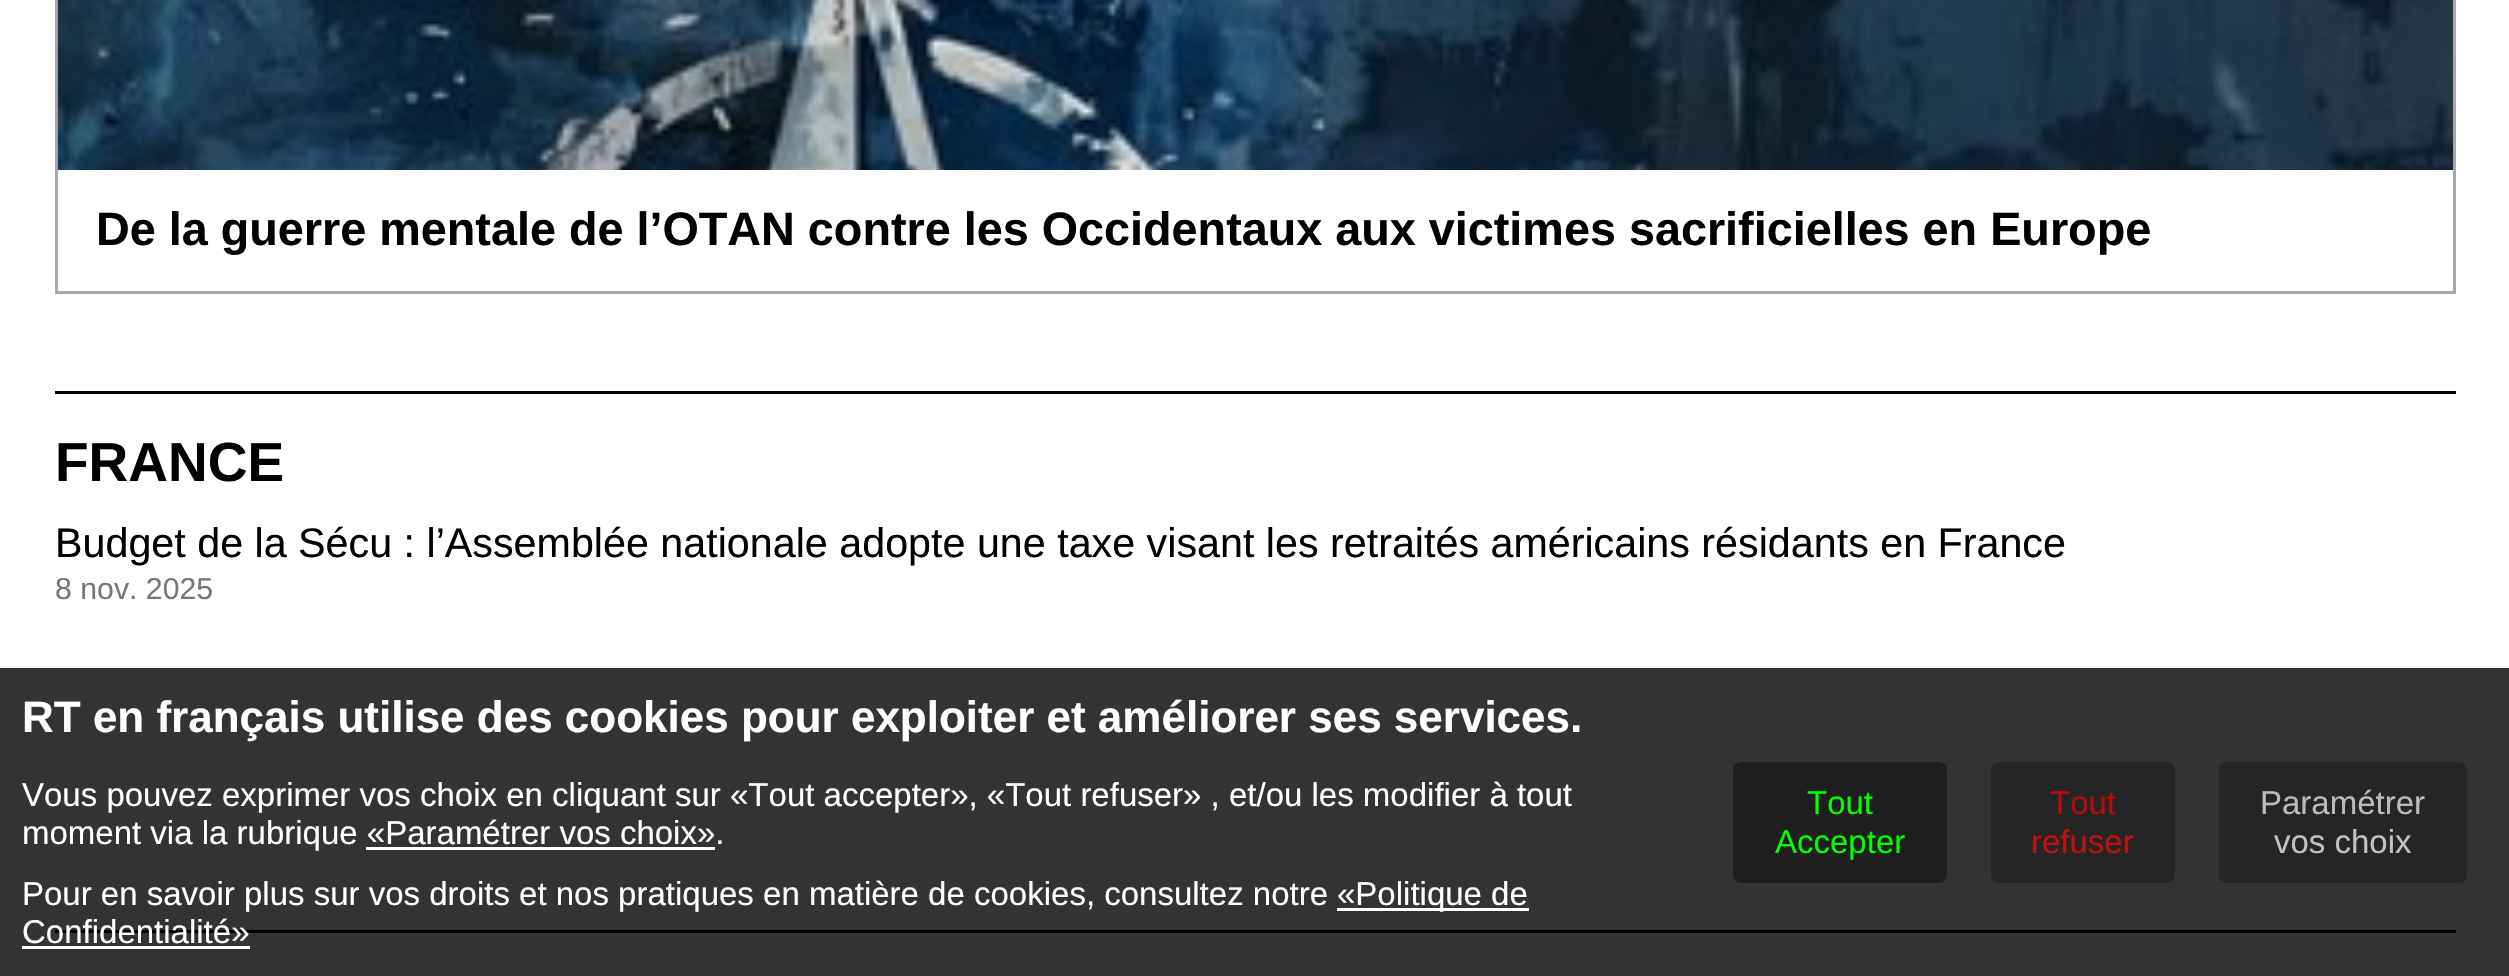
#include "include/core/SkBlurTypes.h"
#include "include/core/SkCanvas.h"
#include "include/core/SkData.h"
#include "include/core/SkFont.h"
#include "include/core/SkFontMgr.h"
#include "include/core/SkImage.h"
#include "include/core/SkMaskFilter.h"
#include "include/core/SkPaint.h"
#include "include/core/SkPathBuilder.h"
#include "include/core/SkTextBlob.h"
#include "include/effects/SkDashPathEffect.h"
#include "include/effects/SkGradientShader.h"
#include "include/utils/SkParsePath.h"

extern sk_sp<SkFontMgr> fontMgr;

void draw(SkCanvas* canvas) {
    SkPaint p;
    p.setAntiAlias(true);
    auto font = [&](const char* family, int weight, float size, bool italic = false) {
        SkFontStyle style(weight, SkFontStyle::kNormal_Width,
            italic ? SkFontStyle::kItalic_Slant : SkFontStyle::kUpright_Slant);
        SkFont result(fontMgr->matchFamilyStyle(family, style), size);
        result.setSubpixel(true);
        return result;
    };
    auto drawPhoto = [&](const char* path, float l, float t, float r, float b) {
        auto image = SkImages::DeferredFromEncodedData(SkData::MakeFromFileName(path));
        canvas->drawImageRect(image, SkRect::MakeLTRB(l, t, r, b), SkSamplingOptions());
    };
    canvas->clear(0xFFFFFFFF);
    p.setStyle(SkPaint::kStroke_Style);
    p.setStrokeWidth(3);
    p.setColor(0xFFA6A8AB);
    canvas->drawRect(SkRect::MakeLTRB(56.5f, -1.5f, 2454.5f, 292.5f), p);
    drawPhoto("media/1.png", 57, 0, 2453, 170);
    auto font1 = font("Liberation Sans", 700, 46.75f);
    p.setStyle(SkPaint::kFill_Style);
    p.setColor(0xFF000000);
    canvas->drawString("De la guerre mentale de l’OTAN contre les Occidentaux aux victimes sacrificielles en Europe", 96, 245, font1, p);
    canvas->drawRect(SkRect::MakeLTRB(55, 391, 2456, 394), p);
    auto font2 = font("Liberation Sans", 700, 55);
    canvas->drawString("FRANCE", 55, 481, font2, p);
    auto font3 = font("Liberation Sans", 400, 41.25f);
    canvas->drawString("Budget de la Sécu : l’Assemblée nationale adopte une taxe visant les retraités américains résidants en France", 55, 557, font3, p);
    auto font4 = font("Liberation Sans", 400, 30.25f);
    p.setColor(0xFF777777);
    canvas->drawString("8 nov. 2025", 55, 599, font4, p);
    p.setColor(0xFF000000);
    canvas->drawRect(SkRect::MakeLTRB(55, 930, 2456, 933), p);
    p.setColor(0xCC000000);
    canvas->drawRect(SkRect::MakeLTRB(0, 668, 2509, 976), p);
    auto font5 = font("Liberation Sans", 700, 44);
    p.setColor(0xFFFFFFFF);
    canvas->drawString("RT en français utilise des cookies pour exploiter et améliorer ses services.", 22, 732, font5, p);
    auto font6 = font("Liberation Sans", 400, 33);
    canvas->drawString("Vous pouvez exprimer vos choix en cliquant sur «Tout accepter», «Tout refuser» , et/ou les modifier à tout", 22, 806, font6, p);
    canvas->drawString("moment via la rubrique «Paramétrer vos choix».", 22, 844, font6, p);
    canvas->drawRect(SkRect::MakeLTRB(366, 847, 715, 850), p);
    canvas->drawString("Pour en savoir plus sur vos droits et nos pratiques en matière de cookies, consultez notre", 22, 905, font6, p);
    canvas->drawRect(SkRect::MakeLTRB(1337, 908, 1529, 911), p);
    canvas->drawString("«Politique de", 1337, 905, font6, p);
    canvas->drawString("Confidentialité»", 22, 943, font6, p);
    canvas->drawRect(SkRect::MakeLTRB(22, 946, 250, 949), p);
    p.setColor(0xFF1E1E1E);
    canvas->drawRoundRect(SkRect::MakeLTRB(1733, 762, 1947, 883), 8, 8, p);
    p.setColor(0xFF00FF00);
    canvas->drawString("Tout", 1807, 814, font6, p);
    canvas->drawString("Accepter", 1775, 853, font6, p);
    p.setColor(0xB31E1E1E);
    canvas->drawRoundRect(SkRect::MakeLTRB(1991, 762, 2175, 883), 8, 8, p);
    p.setColor(0xFFBC0909);
    canvas->drawString("Tout", 2050, 814, font6, p);
    p.setColor(0xFFC20F0F);
    canvas->drawString("refuser", 2031, 853, font6, p);
    p.setColor(0xB31E1E1E);
    canvas->drawRoundRect(SkRect::MakeLTRB(2219, 762, 2467, 883), 8, 8, p);
    p.setColor(0xFFBCBCBC);
    canvas->drawString("Paramétrer", 2260, 814, font6, p);
    p.setColor(0xFFC2C2C2);
    canvas->drawString("vos choix", 2274, 853, font6, p);
}
